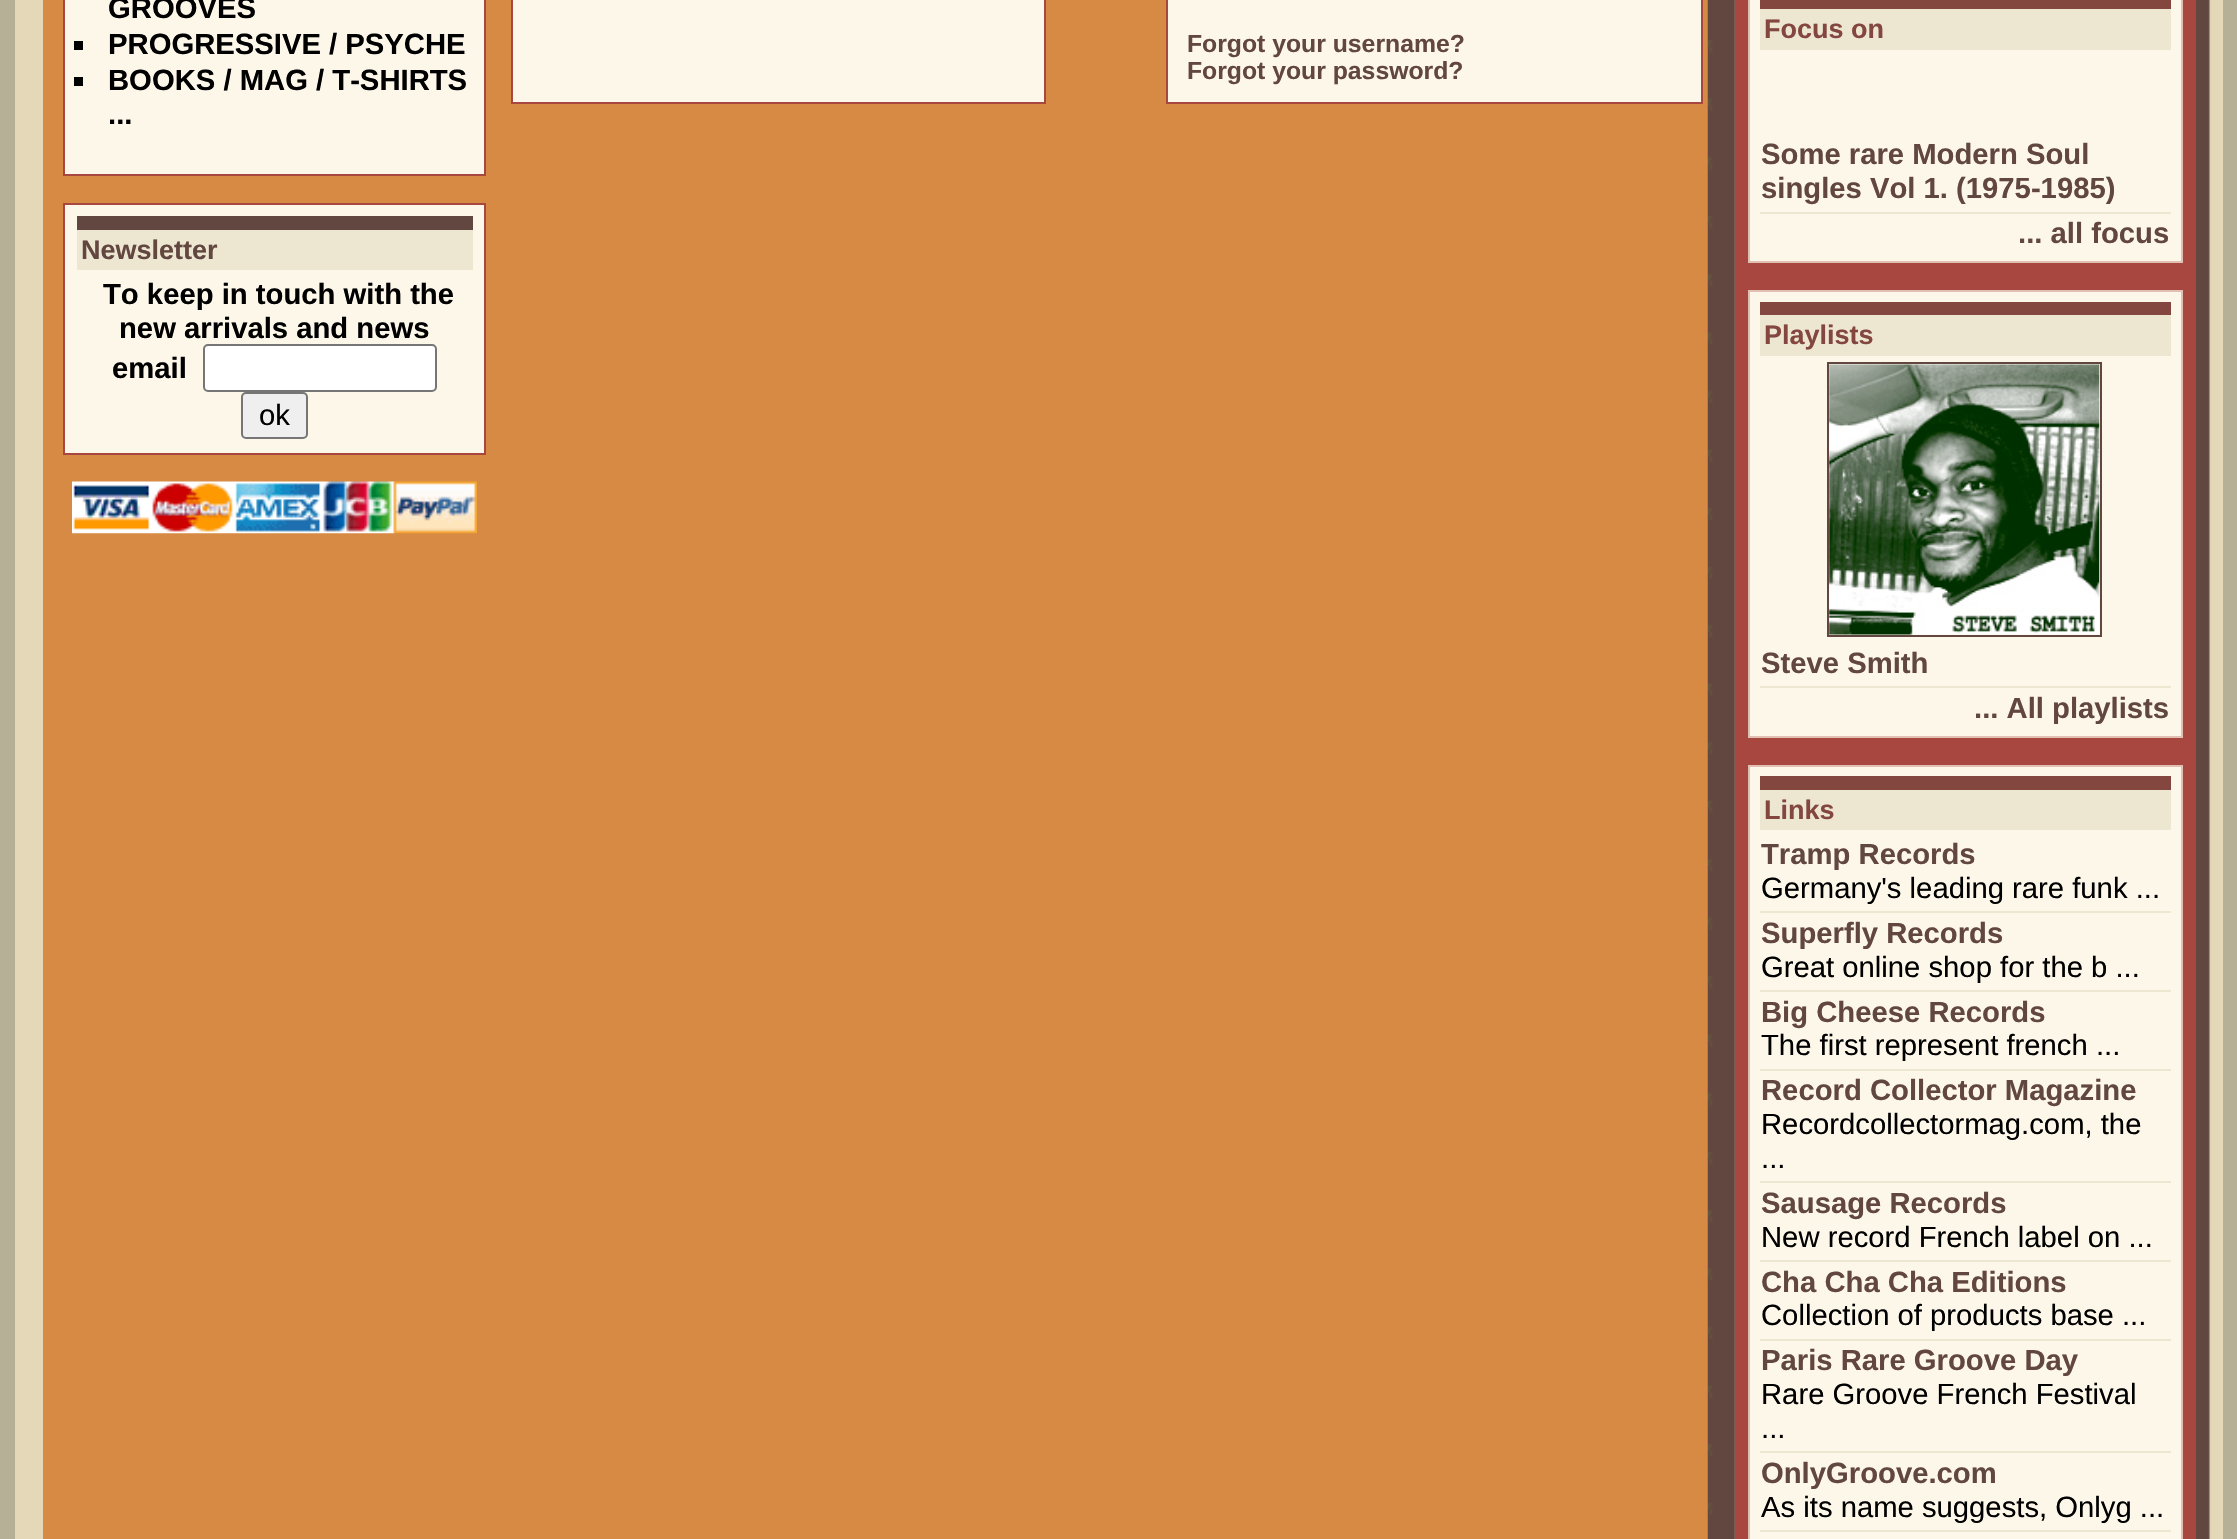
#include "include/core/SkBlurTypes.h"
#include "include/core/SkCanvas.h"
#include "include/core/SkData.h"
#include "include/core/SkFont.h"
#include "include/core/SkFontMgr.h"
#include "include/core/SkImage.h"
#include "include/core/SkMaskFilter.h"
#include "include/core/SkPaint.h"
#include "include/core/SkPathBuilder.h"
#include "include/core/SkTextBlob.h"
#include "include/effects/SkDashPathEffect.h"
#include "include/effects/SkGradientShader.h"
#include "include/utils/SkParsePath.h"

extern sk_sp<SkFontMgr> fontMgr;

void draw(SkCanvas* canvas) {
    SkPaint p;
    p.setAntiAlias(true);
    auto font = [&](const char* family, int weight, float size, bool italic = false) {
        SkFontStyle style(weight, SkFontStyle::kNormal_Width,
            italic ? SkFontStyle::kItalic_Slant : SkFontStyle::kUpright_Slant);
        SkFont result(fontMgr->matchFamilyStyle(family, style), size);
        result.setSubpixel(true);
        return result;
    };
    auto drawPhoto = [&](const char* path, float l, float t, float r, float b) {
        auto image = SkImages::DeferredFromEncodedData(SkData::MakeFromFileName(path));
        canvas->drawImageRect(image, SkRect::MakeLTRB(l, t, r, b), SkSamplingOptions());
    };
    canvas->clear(0xFFB6B097);
    p.setColor(0xFFE4D8B8);
    canvas->drawRect(SkRect::MakeLTRB(15, 0, 43, 1539), p);
    p.setColor(0xFFD68A44);
    canvas->drawRect(SkRect::MakeLTRB(43, 0, 1708, 1539), p);
    p.setColor(0xFFFDF7E9);
    canvas->drawRect(SkRect::MakeLTRB(64, -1, 485, 175), p);
    p.setStyle(SkPaint::kStroke_Style);
    p.setStrokeWidth(2);
    p.setColor(0xFFA84740);
    canvas->drawRect(SkRect::MakeLTRB(64, -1, 485, 175), p);
    auto font1 = font("Liberation Sans", 700, 29.25f);
    p.setStyle(SkPaint::kFill_Style);
    p.setColor(0xFF000000);
    canvas->drawString("GROOVES", 108, 18, font1, p);
    canvas->drawRect(SkRect::MakeLTRB(74, 41, 83, 50), p);
    canvas->drawString("PROGRESSIVE / PSYCHE", 108, 54, font1, p);
    canvas->drawRect(SkRect::MakeLTRB(74, 77, 83, 86), p);
    canvas->drawString("BOOKS / MAG / T-SHIRTS", 108, 90, font1, p);
    canvas->drawString("...", 108, 124, font1, p);
    p.setColor(0xFFFDF7E9);
    canvas->drawRect(SkRect::MakeLTRB(64, 204, 485, 454), p);
    p.setStyle(SkPaint::kStroke_Style);
    p.setColor(0xFFA84740);
    canvas->drawRect(SkRect::MakeLTRB(64, 204, 485, 454), p);
    p.setStyle(SkPaint::kFill_Style);
    p.setColor(0xFFEDE6D1);
    canvas->drawRect(SkRect::MakeLTRB(77, 230, 473, 270), p);
    p.setColor(0xFF624740);
    canvas->drawRect(SkRect::MakeLTRB(77, 216, 473, 230), p);
    auto font2 = font("Liberation Sans", 700, 27);
    canvas->drawString("Newsletter", 81, 259, font2, p);
    p.setColor(0xFF000000);
    {
        const struct { const char* s; float x, y; } items[] = {
            {"To keep in touch with the", 103, 304},
            {"new arrivals and news", 119, 338},
            {"email", 112, 378},
        };
        for (auto [s, x, y] : items) {
            canvas->drawString(s, x, y, font1, p);
        }
    }
    p.setColor(0xFFFFFFFF);
    canvas->drawRoundRect(SkRect::MakeLTRB(204, 345, 436, 391), 4, 4, p);
    p.setStyle(SkPaint::kStroke_Style);
    p.setColor(0xFF767676);
    canvas->drawRoundRect(SkRect::MakeLTRB(204, 345, 436, 391), 4, 4, p);
    p.setStyle(SkPaint::kFill_Style);
    p.setColor(0xFFEFEFEF);
    canvas->drawRoundRect(SkRect::MakeLTRB(242, 393, 307, 438), 4, 4, p);
    p.setStyle(SkPaint::kStroke_Style);
    p.setColor(0xFF767676);
    canvas->drawRoundRect(SkRect::MakeLTRB(242, 393, 307, 438), 4, 4, p);
    auto font3 = font("Liberation Sans", 400, 29.25f);
    p.setStyle(SkPaint::kFill_Style);
    p.setColor(0xFF000000);
    canvas->drawString("ok", 259, 425, font3, p);
    drawPhoto("media/1.png", 72, 481, 477, 534);
    p.setColor(0xFFFDF7E9);
    canvas->drawRect(SkRect::MakeLTRB(512, -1, 1045, 103), p);
    p.setStyle(SkPaint::kStroke_Style);
    p.setColor(0xFFA84740);
    canvas->drawRect(SkRect::MakeLTRB(512, -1, 1045, 103), p);
    p.setStyle(SkPaint::kFill_Style);
    p.setColor(0xFFFDF7E9);
    canvas->drawRect(SkRect::MakeLTRB(1167, -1, 1702, 103), p);
    p.setStyle(SkPaint::kStroke_Style);
    p.setColor(0xFFA84740);
    canvas->drawRect(SkRect::MakeLTRB(1167, -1, 1702, 103), p);
    auto font4 = font("Liberation Sans", 700, 24.75f);
    p.setStyle(SkPaint::kFill_Style);
    p.setColor(0xFF624740);
    canvas->drawString("Forgot your username?", 1187, 52, font4, p);
    canvas->drawString("Forgot your password?", 1187, 79, font4, p);
    drawPhoto("media/2.png", 1707, 0, 1735, 1539);
    p.setColor(0xFFA84740);
    canvas->drawRect(SkRect::MakeLTRB(1735, 0, 2196, 1539), p);
    p.setColor(0xFFFDF7E9);
    canvas->drawRect(SkRect::MakeLTRB(1749, -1, 2182, 262), p);
    p.setStyle(SkPaint::kStroke_Style);
    p.setColor(0xFFE1C0B3);
    canvas->drawRect(SkRect::MakeLTRB(1749, -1, 2182, 262), p);
    p.setStyle(SkPaint::kFill_Style);
    p.setColor(0xFFEDE6D1);
    canvas->drawRect(SkRect::MakeLTRB(1760, 9, 2171, 50), p);
    p.setColor(0xFF834740);
    canvas->drawRect(SkRect::MakeLTRB(1760, 0, 2171, 9), p);
    canvas->drawString("Focus on", 1764, 38, font2, p);
    p.setColor(0xFF624740);
    canvas->drawString("Some rare Modern Soul", 1761, 164, font1, p);
    canvas->drawString("singles Vol 1. (1975-1985)", 1761, 198, font1, p);
    p.setColor(0xFFEDE6D1);
    canvas->drawRect(SkRect::MakeLTRB(1760, 212, 2171, 214), p);
    p.setColor(0xFF624740);
    canvas->drawString("... all focus", 2018, 243, font1, p);
    p.setColor(0xFFFDF7E9);
    canvas->drawRect(SkRect::MakeLTRB(1749, 291, 2182, 737), p);
    p.setStyle(SkPaint::kStroke_Style);
    p.setColor(0xFFE1C0B3);
    canvas->drawRect(SkRect::MakeLTRB(1749, 291, 2182, 737), p);
    p.setStyle(SkPaint::kFill_Style);
    p.setColor(0xFFEDE6D1);
    canvas->drawRect(SkRect::MakeLTRB(1760, 315, 2171, 356), p);
    p.setColor(0xFF834740);
    canvas->drawRect(SkRect::MakeLTRB(1760, 302, 2171, 315), p);
    canvas->drawString("Playlists", 1764, 344, font2, p);
    p.setStyle(SkPaint::kStroke_Style);
    p.setColor(0xFF624740);
    canvas->drawRect(SkRect::MakeLTRB(1828, 363, 2101, 636), p);
    drawPhoto("media/3.png", 1829, 364, 2100, 635);
    p.setStyle(SkPaint::kFill_Style);
    canvas->drawString("Steve Smith", 1761, 673, font1, p);
    p.setColor(0xFFEDE6D1);
    canvas->drawRect(SkRect::MakeLTRB(1760, 686, 2171, 688), p);
    p.setColor(0xFF624740);
    canvas->drawString("... All playlists", 1974, 718, font1, p);
    p.setColor(0xFFFDF7E9);
    canvas->drawRect(SkRect::MakeLTRB(1749, 766, 2182, 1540), p);
    p.setStyle(SkPaint::kStroke_Style);
    p.setColor(0xFFE1C0B3);
    canvas->drawRect(SkRect::MakeLTRB(1749, 766, 2182, 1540), p);
    p.setStyle(SkPaint::kFill_Style);
    p.setColor(0xFFEDE6D1);
    canvas->drawRect(SkRect::MakeLTRB(1760, 790, 2171, 830), p);
    p.setColor(0xFF834740);
    canvas->drawRect(SkRect::MakeLTRB(1760, 776, 2171, 790), p);
    canvas->drawString("Links", 1764, 819, font2, p);
    p.setColor(0xFF624740);
    canvas->drawString("Tramp Records", 1761, 864, font1, p);
    p.setColor(0xFF000000);
    canvas->drawString("Germany's leading rare funk ...", 1761, 898, font3, p);
    p.setColor(0xFFEDE6D1);
    canvas->drawRect(SkRect::MakeLTRB(1760, 911, 2171, 913), p);
    p.setColor(0xFF624740);
    canvas->drawString("Superfly Records", 1761, 943, font1, p);
    p.setColor(0xFF000000);
    canvas->drawString("Great online shop for the b ...", 1761, 977, font3, p);
    p.setColor(0xFFEDE6D1);
    canvas->drawRect(SkRect::MakeLTRB(1760, 990, 2171, 992), p);
    p.setColor(0xFF624740);
    canvas->drawString("Big Cheese Records", 1761, 1022, font1, p);
    p.setColor(0xFF000000);
    canvas->drawString("The first represent french ...", 1761, 1055, font3, p);
    p.setColor(0xFFEDE6D1);
    canvas->drawRect(SkRect::MakeLTRB(1760, 1069, 2171, 1071), p);
    p.setColor(0xFF624740);
    canvas->drawString("Record Collector Magazine", 1761, 1100, font1, p);
    p.setColor(0xFF000000);
    canvas->drawString("Recordcollectormag.com, the", 1761, 1134, font3, p);
    canvas->drawString("...", 1761, 1168, font3, p);
    p.setColor(0xFFEDE6D1);
    canvas->drawRect(SkRect::MakeLTRB(1760, 1181, 2171, 1183), p);
    p.setColor(0xFF624740);
    canvas->drawString("Sausage Records", 1761, 1213, font1, p);
    p.setColor(0xFF000000);
    canvas->drawString("New record French label on ...", 1761, 1247, font3, p);
    p.setColor(0xFFEDE6D1);
    canvas->drawRect(SkRect::MakeLTRB(1760, 1260, 2171, 1262), p);
    p.setColor(0xFF624740);
    canvas->drawString("Cha Cha Cha Editions", 1761, 1292, font1, p);
    p.setColor(0xFF000000);
    canvas->drawString("Collection of products base ...", 1761, 1325, font3, p);
    p.setColor(0xFFEDE6D1);
    canvas->drawRect(SkRect::MakeLTRB(1760, 1339, 2171, 1341), p);
    p.setColor(0xFF624740);
    canvas->drawString("Paris Rare Groove Day", 1761, 1370, font1, p);
    p.setColor(0xFF000000);
    canvas->drawString("Rare Groove French Festival", 1761, 1404, font3, p);
    canvas->drawString("...", 1761, 1438, font3, p);
    p.setColor(0xFFEDE6D1);
    canvas->drawRect(SkRect::MakeLTRB(1760, 1451, 2171, 1453), p);
    p.setColor(0xFF624740);
    canvas->drawString("OnlyGroove.com", 1761, 1483, font1, p);
    p.setColor(0xFF000000);
    canvas->drawString("As its name suggests, Onlyg ...", 1761, 1517, font3, p);
    p.setColor(0xFFEDE6D1);
    canvas->drawRect(SkRect::MakeLTRB(1760, 1530, 2171, 1532), p);
    drawPhoto("media/4.png", 2196, 0, 2223, 1539);
}
